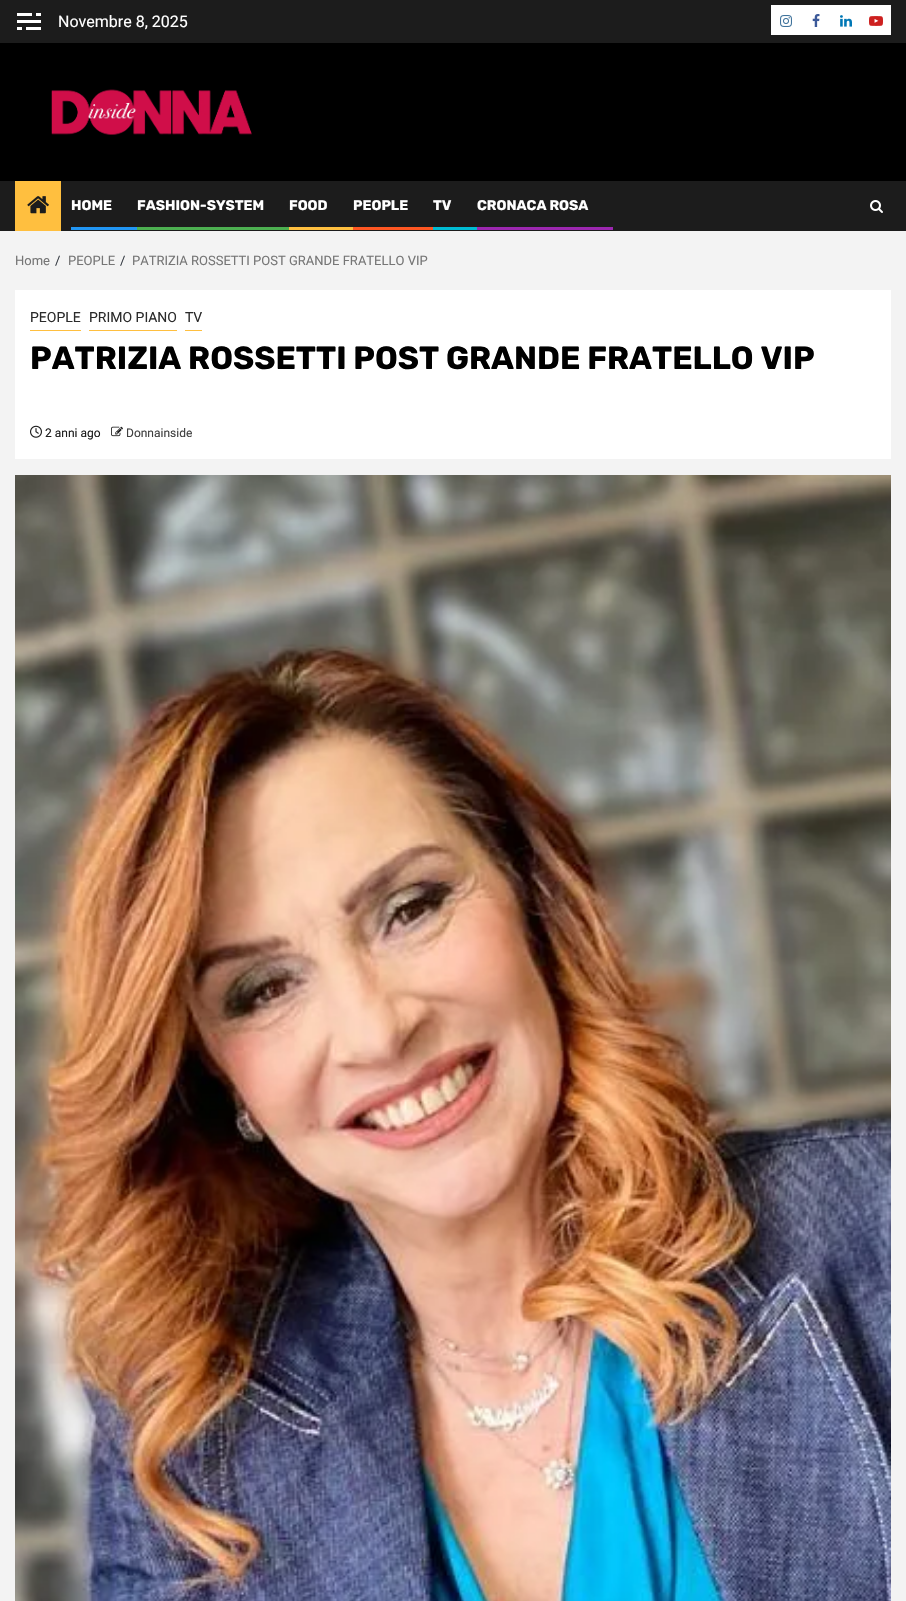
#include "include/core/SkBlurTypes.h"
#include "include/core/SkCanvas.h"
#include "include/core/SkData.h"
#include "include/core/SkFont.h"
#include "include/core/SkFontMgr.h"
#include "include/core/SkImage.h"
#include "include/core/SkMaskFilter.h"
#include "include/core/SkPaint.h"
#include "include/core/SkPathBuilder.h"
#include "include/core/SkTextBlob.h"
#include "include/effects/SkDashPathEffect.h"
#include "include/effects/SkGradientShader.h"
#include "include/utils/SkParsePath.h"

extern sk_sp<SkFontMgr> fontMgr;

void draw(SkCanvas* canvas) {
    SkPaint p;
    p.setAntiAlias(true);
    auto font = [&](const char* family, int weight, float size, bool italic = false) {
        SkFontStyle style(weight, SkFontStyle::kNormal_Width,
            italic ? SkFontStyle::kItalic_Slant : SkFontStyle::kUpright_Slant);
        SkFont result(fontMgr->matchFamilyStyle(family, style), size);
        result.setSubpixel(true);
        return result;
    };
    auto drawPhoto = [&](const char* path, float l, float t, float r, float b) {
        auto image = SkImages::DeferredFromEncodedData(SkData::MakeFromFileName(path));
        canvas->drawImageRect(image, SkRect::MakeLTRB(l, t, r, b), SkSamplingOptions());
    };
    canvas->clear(0xFFF3F3F3);
    {
        const struct { float l, t, r, b; SkColor color; } items[] = {
            {0, 0, 906, 43, 0xFF1C1C1C},
            {36, 13, 41, 16, 0xFFFFFFFF},
            {17, 13, 32, 16, 0xFFFFFFFF},
            {17, 20, 41, 23, 0xFFFFFFFF},
            {26, 27, 41, 30, 0xFFFFFFFF},
            {17, 27, 22, 30, 0xFFFFFFFF},
        };
        for (auto [l, t, r, b, color] : items) {
            p.setColor(color);
            canvas->drawRect(SkRect::MakeLTRB(l, t, r, b), p);
        }
    }
    auto font1 = font("Roboto", 400, 16);
    canvas->drawString("Novembre 8, 2025", 58, 27, font1, p);
    canvas->drawRect(SkRect::MakeLTRB(771, 5, 891, 35), p);
    drawPhoto("media/1.png", 780, 15, 792, 27);
    drawPhoto("media/2.png", 812, 14, 820, 27);
    drawPhoto("media/3.png", 840, 15, 852, 27);
    drawPhoto("media/4.png", 869, 16, 883, 26);
    p.setColor(0xFF000000);
    canvas->drawRect(SkRect::MakeLTRB(0, 43, 906, 181), p);
    drawPhoto("media/5.png", 51, 89, 252, 135);
    p.setColor(0xFF1C1C1C);
    canvas->drawRect(SkRect::MakeLTRB(0, 181, 906, 231), p);
    p.setColor(0xFFFFBF3F);
    canvas->drawRect(SkRect::MakeLTRB(15, 181, 61, 231), p);
    drawPhoto("media/6.png", 27, 196, 49, 214);
    auto font2 = font("Rubik", 700, 14);
    p.setColor(0xFFFFFFFF);
    canvas->drawString("HOME", 71, 210, font2, p);
    p.setColor(0xFF2196F3);
    canvas->drawRect(SkRect::MakeLTRB(71, 227, 137, 230), p);
    p.setColor(0xFFFFFFFF);
    canvas->drawString("FASHION-SYSTEM", 137, 210, font2, p);
    p.setColor(0xFF4CAF50);
    canvas->drawRect(SkRect::MakeLTRB(137, 227, 289, 230), p);
    p.setColor(0xFFFFFFFF);
    canvas->drawString("FOOD", 289, 210, font2, p);
    p.setColor(0xFFFFBF3F);
    canvas->drawRect(SkRect::MakeLTRB(289, 227, 353, 230), p);
    p.setColor(0xFFFFFFFF);
    canvas->drawString("PEOPLE", 353, 210, font2, p);
    p.setColor(0xFFFF5722);
    canvas->drawRect(SkRect::MakeLTRB(353, 227, 433, 230), p);
    p.setColor(0xFFFFFFFF);
    canvas->drawString("TV", 433, 210, font2, p);
    p.setColor(0xFF00BCD4);
    canvas->drawRect(SkRect::MakeLTRB(433, 227, 477, 230), p);
    p.setColor(0xFFFFFFFF);
    canvas->drawString("CRONACA ROSA", 477, 210, font2, p);
    p.setColor(0xFF9C27B0);
    canvas->drawRect(SkRect::MakeLTRB(477, 227, 613, 230), p);
    drawPhoto("media/7.png", 870, 200, 883, 213);
    auto font3 = font("Roboto", 400, 13);
    p.setColor(0xFF767676);
    canvas->drawString("Home", 15, 265, font3, p);
    p.setColor(0xFF393E46);
    canvas->drawString("/", 55, 265, font3, p);
    p.setColor(0xFF767676);
    canvas->drawString("PEOPLE", 68, 265, font3, p);
    p.setColor(0xFF393E46);
    canvas->drawString("/", 120, 265, font3, p);
    p.setColor(0xFF767676);
    canvas->drawString("PATRIZIA ROSSETTI POST GRANDE FRATELLO VIP", 132, 265, font3, p);
    p.setColor(0xFFFFFFFF);
    canvas->drawRect(SkRect::MakeLTRB(15, 290, 891, 459), p);
    p.setColor(0xFFFFBF3F);
    canvas->drawRect(SkRect::MakeLTRB(30, 330, 81, 331), p);
    auto font4 = font("Roboto", 400, 14);
    p.setColor(0xFF2B2B2B);
    canvas->drawString("PEOPLE", 30, 322, font4, p);
    p.setColor(0xFFFFBF3F);
    canvas->drawRect(SkRect::MakeLTRB(89, 330, 177, 331), p);
    p.setColor(0xFF2B2B2B);
    canvas->drawString("PRIMO PIANO", 89, 322, font4, p);
    p.setColor(0xFFFFBF3F);
    canvas->drawRect(SkRect::MakeLTRB(185, 330, 202, 331), p);
    p.setColor(0xFF2B2B2B);
    canvas->drawString("TV", 185, 322, font4, p);
    auto font5 = font("Rubik", 700, 32);
    p.setColor(0xFF000000);
    canvas->drawString("PATRIZIA ROSSETTI POST GRANDE FRATELLO VIP", 30, 369, font5, p);
    drawPhoto("media/8.png", 30, 425, 42, 438);
    auto font6 = font("Roboto", 400, 12);
    p.setColor(0xFF1C1C1C);
    canvas->drawString("2 anni ago", 45, 437, font6, p);
    drawPhoto("media/9.png", 111, 426, 123, 437);
    p.setColor(0xFF404040);
    canvas->drawString("Donnainside", 126, 437, font6, p);
    drawPhoto("media/10.png", 15, 475, 891, 1601);
}
